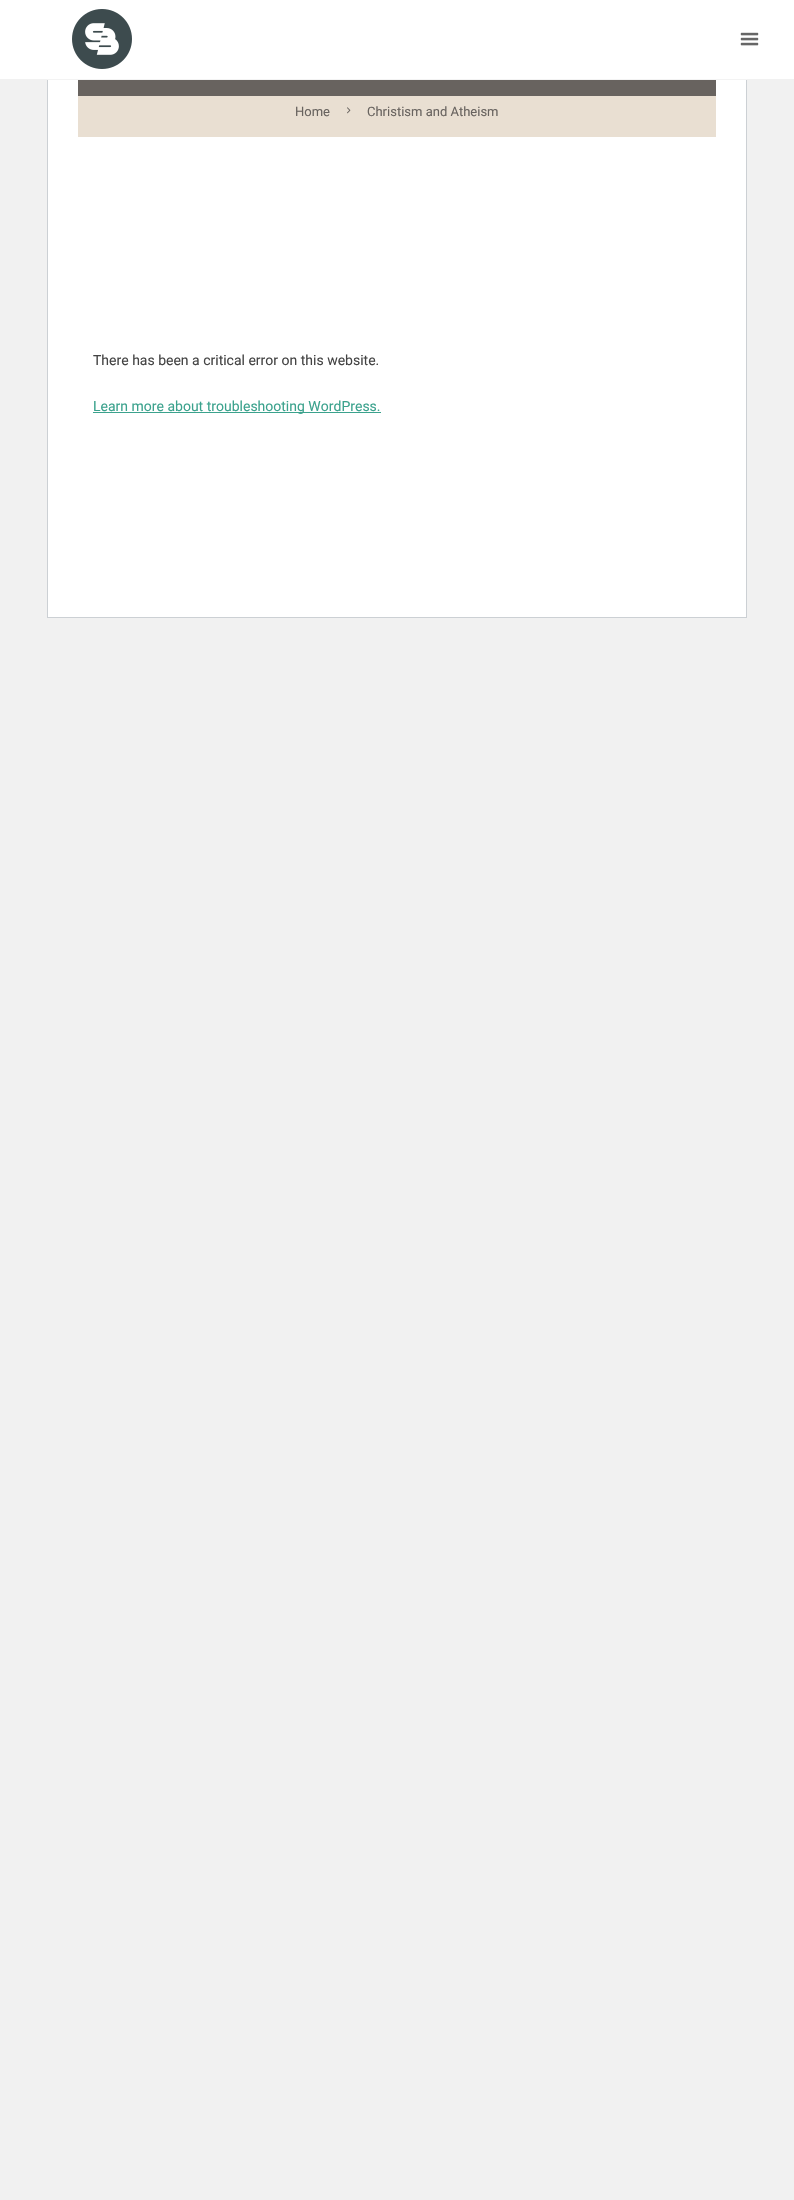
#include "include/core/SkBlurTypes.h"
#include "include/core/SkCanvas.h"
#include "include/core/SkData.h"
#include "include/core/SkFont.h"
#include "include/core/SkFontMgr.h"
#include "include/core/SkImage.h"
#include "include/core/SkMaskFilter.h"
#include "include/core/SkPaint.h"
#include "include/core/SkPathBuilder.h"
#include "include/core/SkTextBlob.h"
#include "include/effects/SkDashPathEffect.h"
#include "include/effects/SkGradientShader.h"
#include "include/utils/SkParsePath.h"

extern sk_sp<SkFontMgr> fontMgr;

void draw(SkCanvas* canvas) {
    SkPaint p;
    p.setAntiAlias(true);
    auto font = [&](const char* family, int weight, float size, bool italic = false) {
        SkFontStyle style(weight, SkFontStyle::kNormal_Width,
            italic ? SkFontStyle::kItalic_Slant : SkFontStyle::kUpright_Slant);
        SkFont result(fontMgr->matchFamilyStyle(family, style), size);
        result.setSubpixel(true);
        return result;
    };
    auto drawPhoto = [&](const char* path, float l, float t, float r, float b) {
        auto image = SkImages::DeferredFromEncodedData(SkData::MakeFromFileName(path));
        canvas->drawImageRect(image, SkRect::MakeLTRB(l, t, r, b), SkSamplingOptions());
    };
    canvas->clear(0xFFF1F1F1);
    p.setColor(0xFFFFFFFF);
    canvas->drawRect(SkRect::MakeLTRB(48, 80, 746, 617), p);
    p.setStyle(SkPaint::kStroke_Style);
    p.setStrokeWidth(1);
    p.setColor(0xFFCCD0D4);
    canvas->drawRect(SkRect::MakeLTRB(47.5f, 50.5f, 746.5f, 617.5f), p);
    p.setStyle(SkPaint::kFill_Style);
    {
        const struct { float l, t, r, b; SkColor color; } items[] = {
            {78, 80, 716, 96, 0xFF68635F},
            {0, 0, 794, 79, 0xFFFFFFFF},
            {47, 79, 747, 80, 0xFFF3F3F3},
        };
        for (auto [l, t, r, b, color] : items) {
            p.setColor(color);
            canvas->drawRect(SkRect::MakeLTRB(l, t, r, b), p);
        }
    }
    drawPhoto("media/1.png", 72, 9, 132, 69);
    drawPhoto("media/2.png", 740, 32, 759, 46);
    p.setColor(0xFFE9DFD2);
    canvas->drawRect(SkRect::MakeLTRB(78, 96, 716, 137), p);
    auto font1 = font("Roboto", 400, 13);
    p.setColor(0xFF68635F);
    canvas->drawString("Home", 295, 116, font1, p);
    drawPhoto("media/3.png", 347, 107, 351, 114);
    canvas->drawString("Christism and Atheism", 367, 116, font1, p);
    auto font2 = font("Roboto", 400, 14);
    p.setColor(0xFF444444);
    canvas->drawString("There has been a critical error on this website.", 93, 365, font2, p);
    p.setColor(0xFF3BA28D);
    canvas->drawRect(SkRect::MakeLTRB(93, 412, 381, 413), p);
    canvas->drawString("Learn more about troubleshooting WordPress.", 93, 411, font2, p);
}
